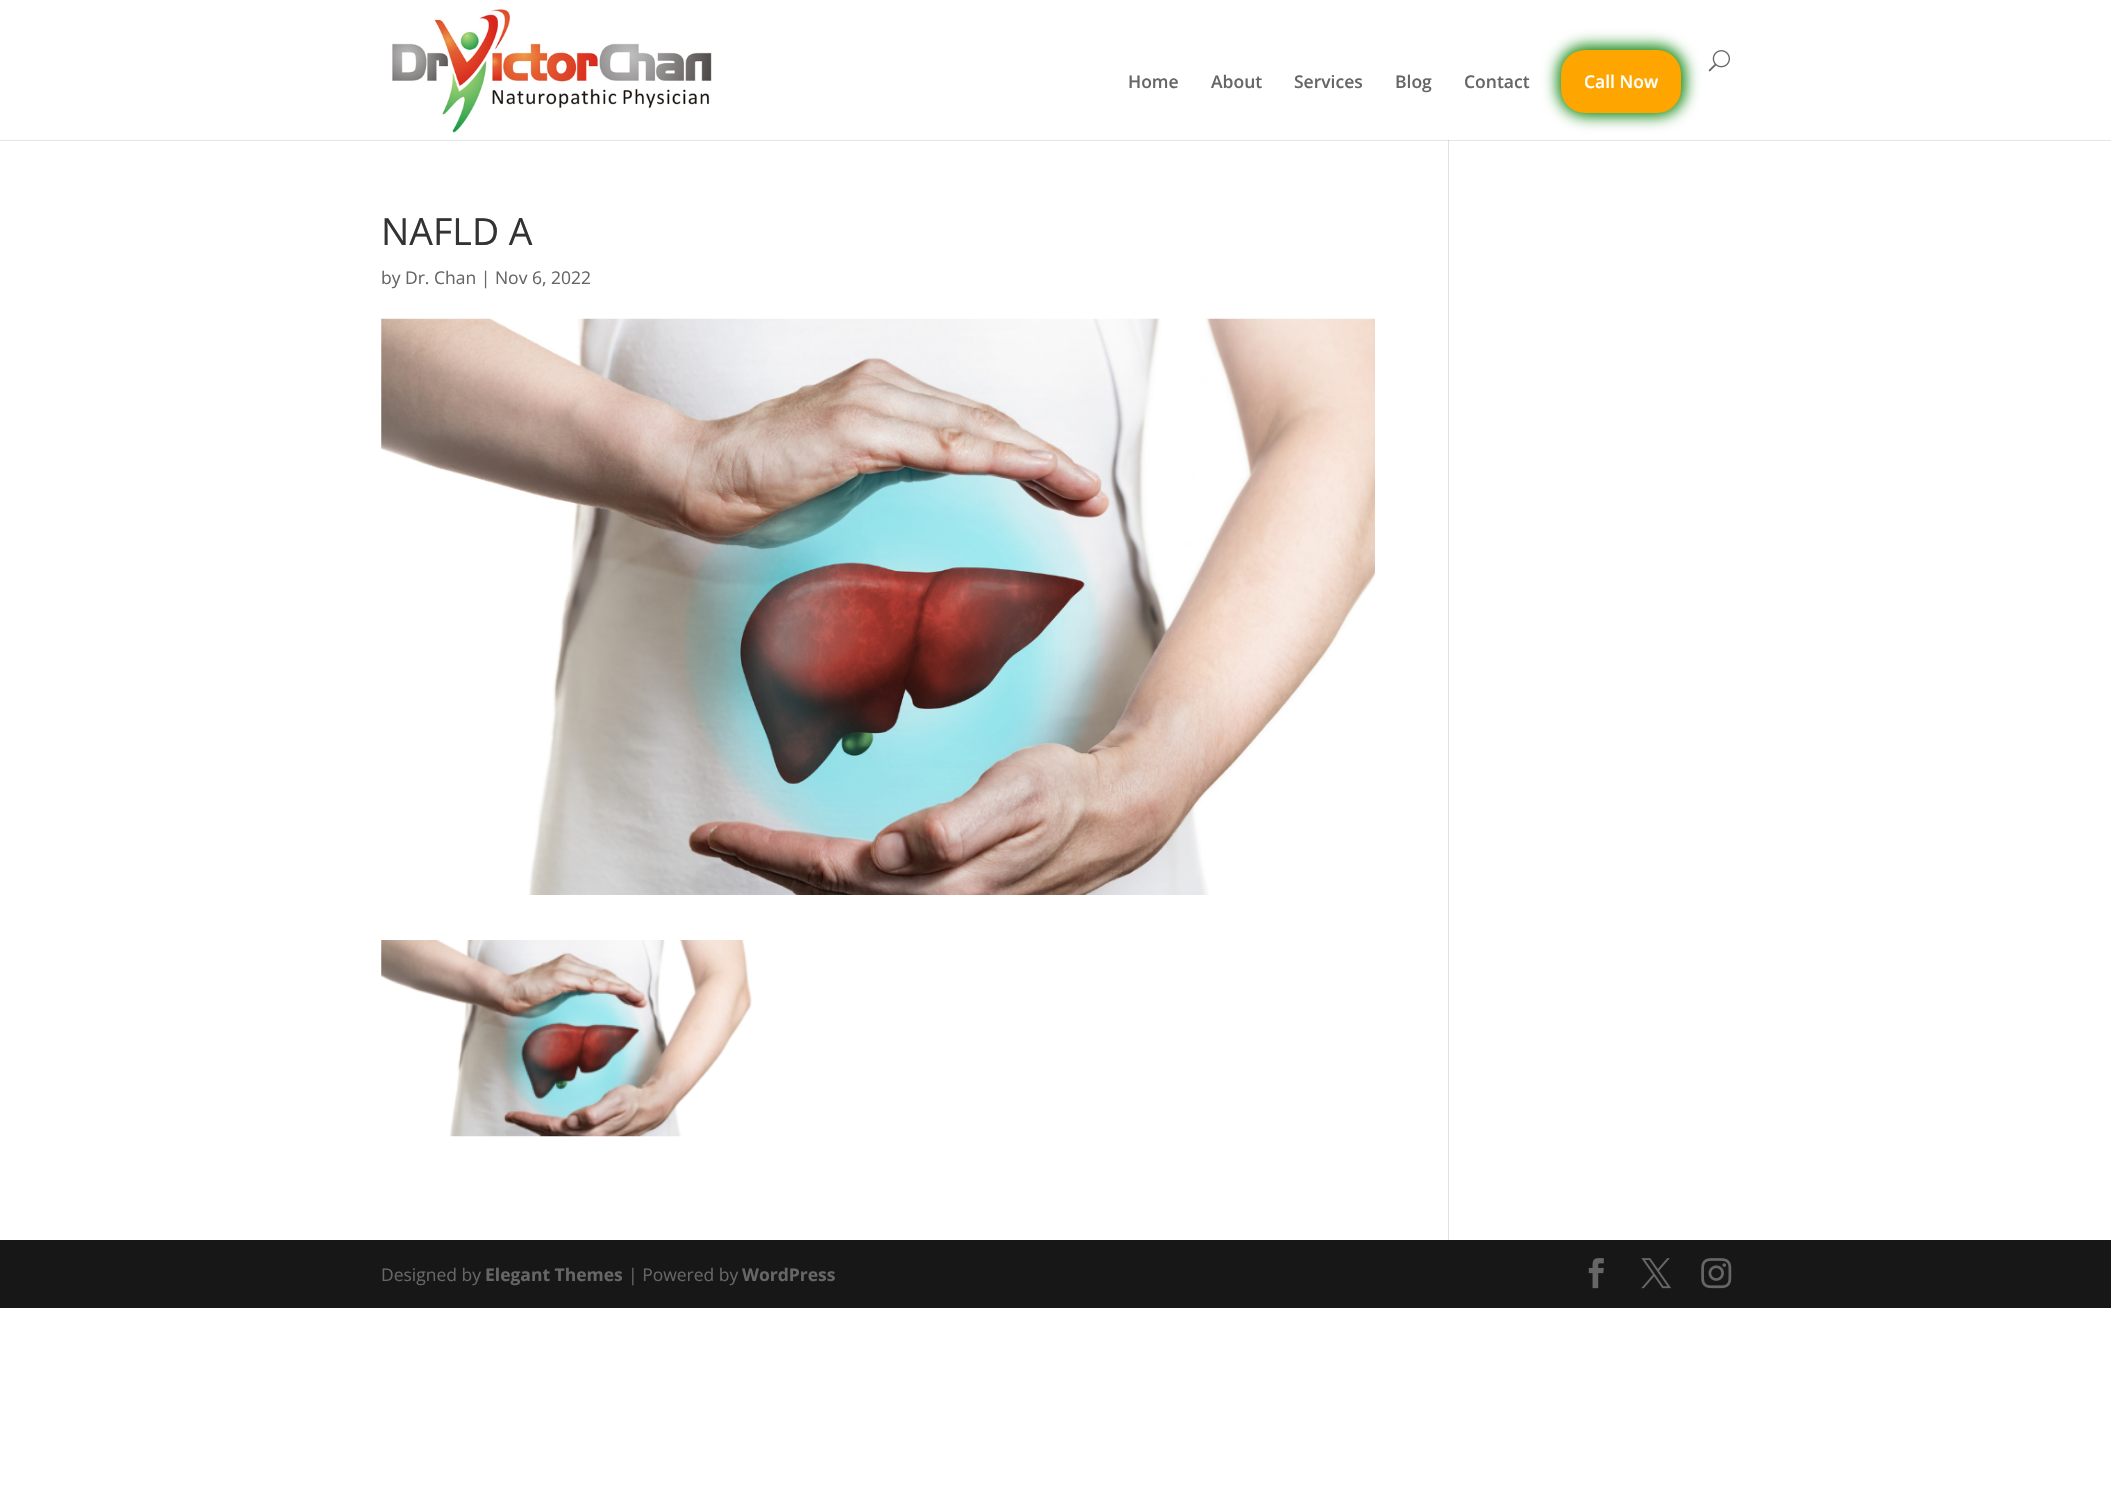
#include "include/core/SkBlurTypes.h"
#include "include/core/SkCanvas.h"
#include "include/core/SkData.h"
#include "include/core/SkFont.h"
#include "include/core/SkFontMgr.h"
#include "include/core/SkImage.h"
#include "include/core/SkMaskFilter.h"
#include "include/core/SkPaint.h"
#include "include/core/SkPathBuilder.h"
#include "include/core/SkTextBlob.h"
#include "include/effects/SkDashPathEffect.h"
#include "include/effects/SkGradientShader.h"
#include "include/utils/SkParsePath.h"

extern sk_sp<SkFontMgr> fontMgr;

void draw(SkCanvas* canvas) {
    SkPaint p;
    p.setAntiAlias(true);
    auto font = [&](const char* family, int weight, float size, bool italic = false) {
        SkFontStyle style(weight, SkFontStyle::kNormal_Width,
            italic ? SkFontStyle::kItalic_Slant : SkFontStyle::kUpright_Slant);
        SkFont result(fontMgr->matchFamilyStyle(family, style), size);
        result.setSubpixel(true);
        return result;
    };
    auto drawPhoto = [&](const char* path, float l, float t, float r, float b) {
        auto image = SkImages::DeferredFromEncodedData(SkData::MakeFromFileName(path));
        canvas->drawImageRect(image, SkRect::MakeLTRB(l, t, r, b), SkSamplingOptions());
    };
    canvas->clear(0xFFFFFFFF);
    p.setColor(0xFFE6E6E6);
    canvas->drawRect(SkRect::MakeLTRB(0, 140, 2111, 141), p);
    drawPhoto("media/1.png", 392, 9, 712, 133);
    p.setColor(0xFF008000);
    p.setMaskFilter(SkMaskFilter::MakeBlur(kNormal_SkBlurStyle, 7.5f));
    canvas->drawRoundRect(SkRect::MakeLTRB(1558, 46, 1685, 116), 28, 28, p);
    p.setMaskFilter(nullptr);
    drawPhoto("media/2.png", 1708, 50, 1730, 72);
    auto font1 = font("Open Sans", 600, 17.5f);
    p.setColor(0xFF666666);
    {
        const struct { const char* s; float x, y; } items[] = {
            {"Home", 1128, 88},
            {"About", 1211, 88},
            {"Services", 1294, 88},
            {"Blog", 1395, 88},
            {"Contact", 1464, 88},
        };
        for (auto [s, x, y] : items) {
            canvas->drawString(s, x, y, font1, p);
        }
    }
    p.setColor(0xFFFFA500);
    canvas->drawRoundRect(SkRect::MakeLTRB(1561, 50, 1681, 113), 24, 24, p);
    p.setColor(0xFFFFFFFF);
    canvas->drawString("Call Now", 1584, 88, font1, p);
    auto font2 = font("Open Sans", 400, 37.5f);
    p.setColor(0xFF333333);
    canvas->drawString("NAFLD A", 381, 245, font2, p);
    auto font3 = font("Open Sans", 400, 17.5f);
    p.setColor(0xFF666666);
    canvas->drawString("by Dr. Chan | Nov 6, 2022", 381, 284, font3, p);
    drawPhoto("media/3.png", 381, 318, 1375, 895);
    drawPhoto("media/4.png", 381, 940, 752, 1137);
    {
        const struct { float l, t, r, b; SkColor color; } items[] = {
            {1448, 140, 1449, 1240, 0xFFE2E2E2},
            {1448, 140, 1449, 141, 0xFFCBCBCB},
            {0, 1240, 2111, 1308, 0xFF171717},
        };
        for (auto [l, t, r, b, color] : items) {
            p.setColor(color);
            canvas->drawRect(SkRect::MakeLTRB(l, t, r, b), p);
        }
    }
    p.setColor(0xFF666666);
    canvas->drawString("Designed by", 381, 1281, font3, p);
    auto font4 = font("Open Sans", 700, 17.5f);
    canvas->drawString("Elegant Themes", 485, 1281, font4, p);
    canvas->drawString("| Powered by", 628, 1281, font3, p);
    canvas->drawString("WordPress", 742, 1281, font4, p);
    drawPhoto("media/5.png", 1588, 1258, 1604, 1289);
    drawPhoto("media/6.png", 1641, 1258, 1671, 1289);
    drawPhoto("media/7.png", 1701, 1258, 1732, 1289);
}
